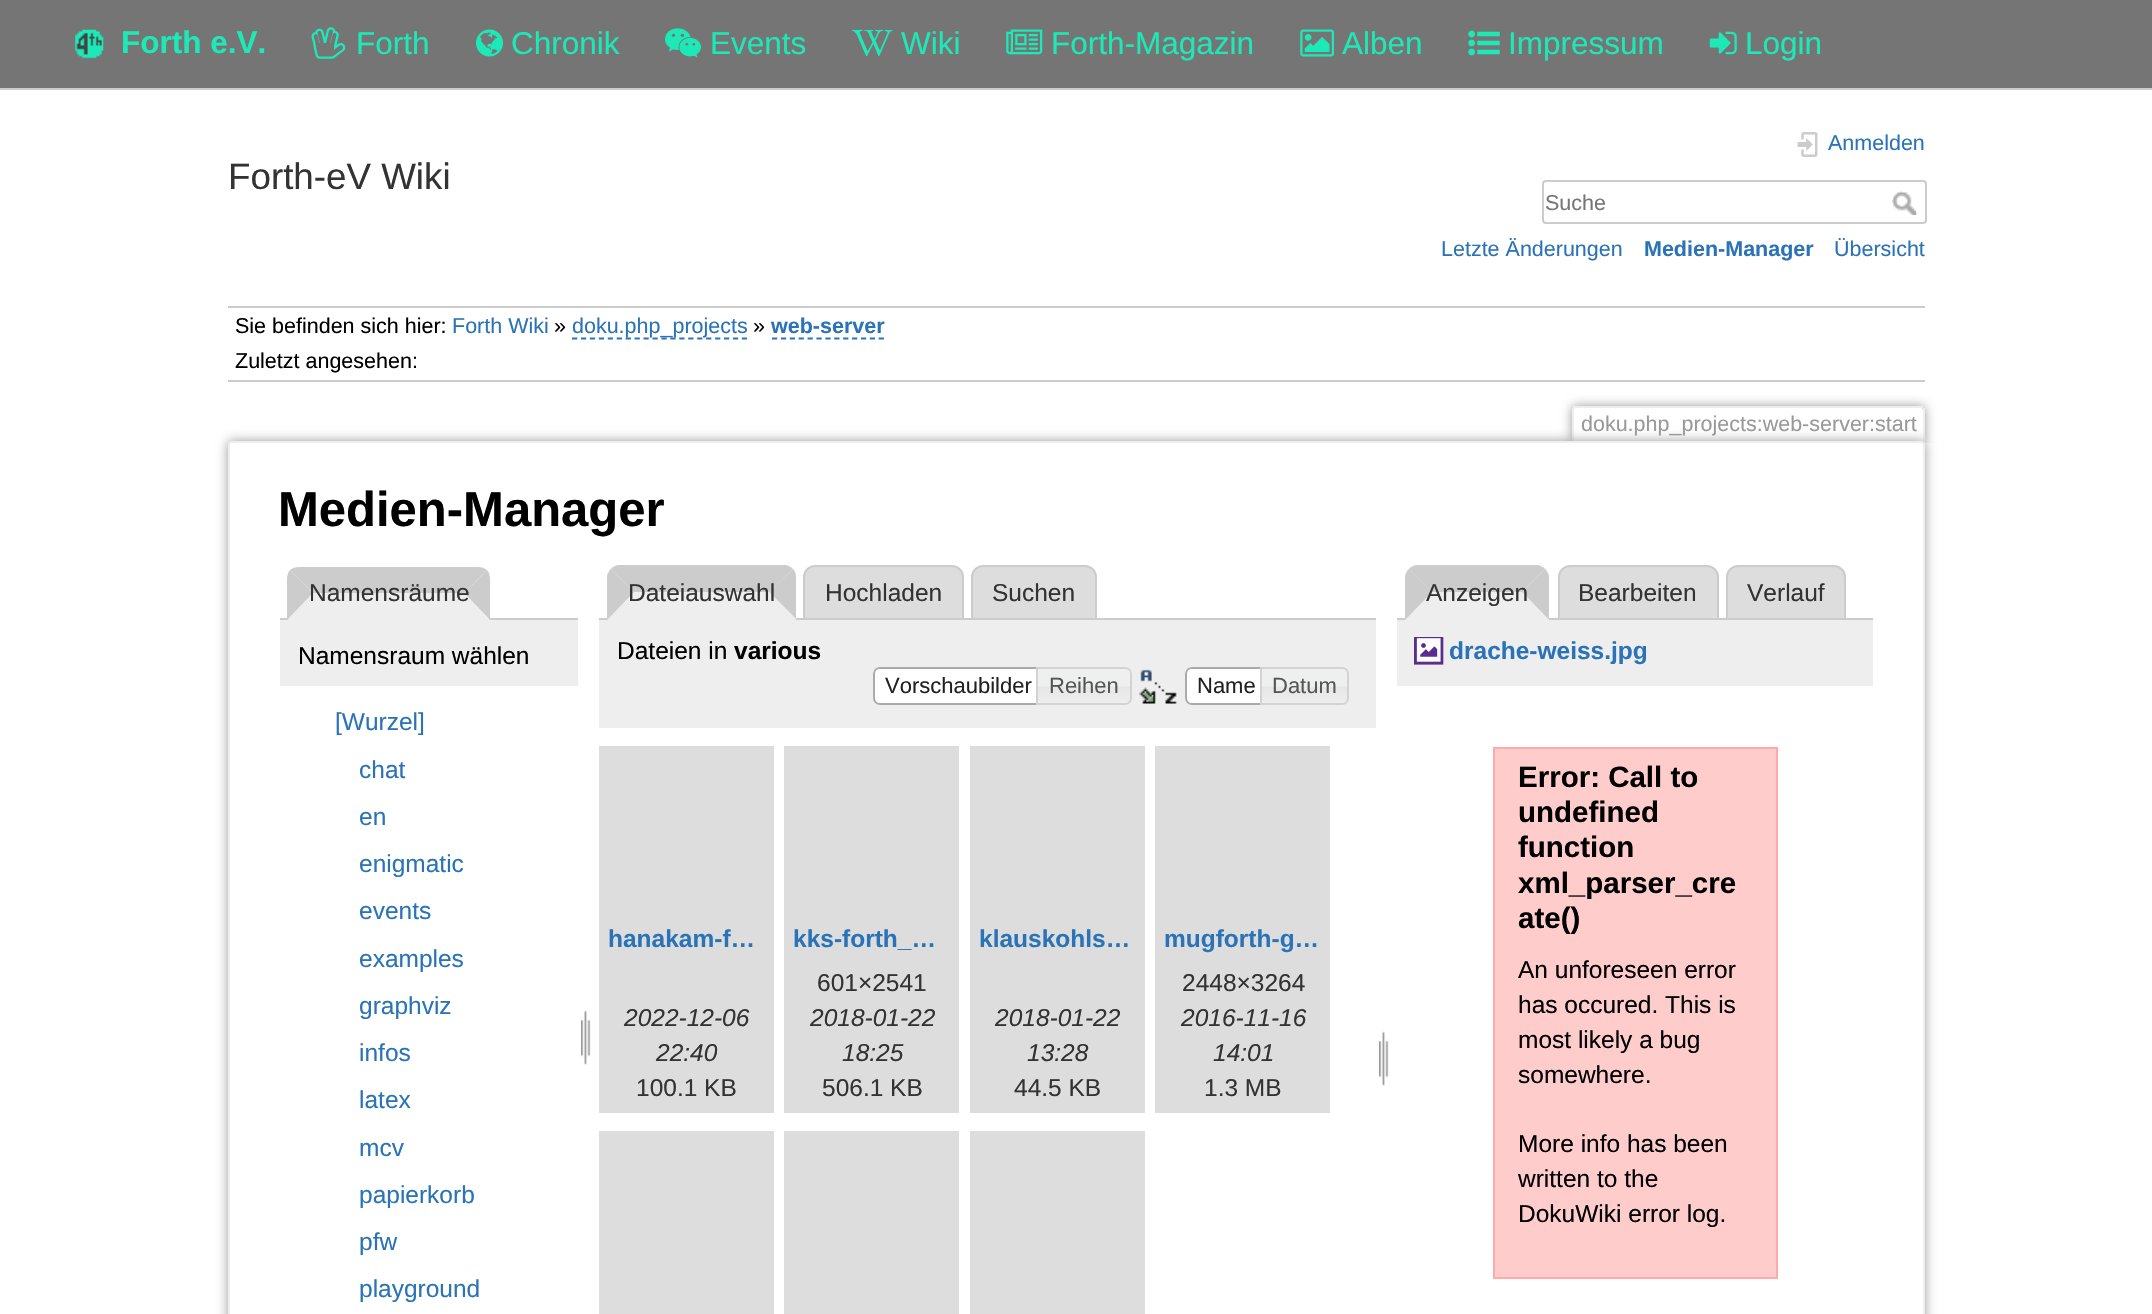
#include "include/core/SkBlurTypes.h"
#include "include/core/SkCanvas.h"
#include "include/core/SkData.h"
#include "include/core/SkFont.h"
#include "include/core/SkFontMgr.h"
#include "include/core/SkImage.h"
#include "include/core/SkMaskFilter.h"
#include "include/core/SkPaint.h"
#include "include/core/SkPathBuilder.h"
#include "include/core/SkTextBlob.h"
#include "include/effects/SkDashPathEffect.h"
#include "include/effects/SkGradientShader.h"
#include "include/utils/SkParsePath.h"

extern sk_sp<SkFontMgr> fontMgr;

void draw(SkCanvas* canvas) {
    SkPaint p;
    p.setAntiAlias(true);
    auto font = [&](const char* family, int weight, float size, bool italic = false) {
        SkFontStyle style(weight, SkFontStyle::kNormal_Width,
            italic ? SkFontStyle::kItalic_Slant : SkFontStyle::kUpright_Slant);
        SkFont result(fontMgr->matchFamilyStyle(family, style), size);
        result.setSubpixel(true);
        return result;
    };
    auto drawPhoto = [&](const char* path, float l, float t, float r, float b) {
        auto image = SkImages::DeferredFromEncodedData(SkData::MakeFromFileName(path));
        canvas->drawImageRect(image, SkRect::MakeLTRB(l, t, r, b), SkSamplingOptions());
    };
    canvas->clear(0xFFFFFFFF);
    p.setColor(0xFF757575);
    canvas->drawRect(SkRect::MakeLTRB(0, 0, 2152, 88), p);
    p.setColor(0xFFCCCCCC);
    canvas->drawRect(SkRect::MakeLTRB(0, 88, 2152, 90), p);
    drawPhoto("media/1.png", 75, 29, 104, 59);
    auto font1 = font("Liberation Sans", 700, 31.5f);
    p.setColor(0xFF1DE9B6);
    canvas->drawString("Forth e.V.", 121, 53, font1, p);
    drawPhoto("media/2.png", 311, 27, 346, 59);
    auto font2 = font("Liberation Sans", 400, 31.5f);
    canvas->drawString("Forth", 356, 54, font2, p);
    drawPhoto("media/3.png", 476, 29, 503, 57);
    canvas->drawString("Chronik", 511, 54, font2, p);
    drawPhoto("media/4.png", 665, 28, 701, 58);
    canvas->drawString("Events", 710, 54, font2, p);
    drawPhoto("media/5.png", 852, 29, 893, 57);
    canvas->drawString("Wiki", 901, 54, font2, p);
    drawPhoto("media/6.png", 1006, 29, 1043, 55);
    canvas->drawString("Forth-Magazin", 1051, 54, font2, p);
    drawPhoto("media/7.png", 1300, 29, 1334, 57);
    canvas->drawString("Alben", 1342, 54, font2, p);
    drawPhoto("media/8.png", 1468, 30, 1500, 56);
    canvas->drawString("Impressum", 1508, 54, font2, p);
    drawPhoto("media/9.png", 1709, 31, 1737, 55);
    canvas->drawString("Login", 1745, 54, font2, p);
    auto font3 = font("Liberation Sans", 400, 36.75f);
    p.setColor(0xFF333333);
    canvas->drawString("Forth-eV Wiki", 228, 189, font3, p);
    drawPhoto("media/10.png", 1797, 132, 1818, 157);
    auto font4 = font("Liberation Sans", 400, 21.5f);
    p.setColor(0xFF2B73B7);
    canvas->drawString("Anmelden", 1828, 150, font4, p);
    p.setStyle(SkPaint::kStroke_Style);
    p.setStrokeWidth(2);
    p.setColor(0xFFCCCCCC);
    canvas->drawRoundRect(SkRect::MakeLTRB(1543, 181, 1926, 223), 3, 3, p);
    p.setStyle(SkPaint::kFill_Style);
    p.setColor(0xFF757575);
    canvas->drawString("Suche", 1545, 210, font4, p);
    drawPhoto("media/11.png", 1892, 191, 1917, 215);
    p.setColor(0xFF2B73B7);
    canvas->drawString("Letzte Änderungen", 1441, 256, font4, p);
    auto font5 = font("Liberation Sans", 700, 21.5f);
    canvas->drawString("Medien-Manager", 1644, 256, font5, p);
    canvas->drawString("Übersicht", 1834, 256, font4, p);
    p.setColor(0xFFCCCCCC);
    canvas->drawRect(SkRect::MakeLTRB(228, 306, 1925, 308), p);
    p.setColor(0xFF000000);
    canvas->drawString("Sie befinden sich hier:", 235, 333, font4, p);
    p.setColor(0xFF2B73B7);
    canvas->drawString("Forth Wiki", 452, 333, font4, p);
    p.setColor(0xFF000000);
    canvas->drawString("»", 554, 333, font4, p);
    p.setStyle(SkPaint::kStroke_Style);
    p.setStrokeWidth(1.8f);
    p.setColor(0xFF2B73B7);
    p.setPathEffect(SkDashPathEffect::Make({{5.25f, 3.69f}}, 0));
    canvas->drawPath(SkPathBuilder().moveTo(572, 338.5f).lineTo(747, 338.5f).detach(), p);
    p.setPathEffect(nullptr);
    p.setStyle(SkPaint::kFill_Style);
    canvas->drawString("doku.php_projects", 572, 333, font4, p);
    p.setColor(0xFF000000);
    canvas->drawString("»", 753, 333, font4, p);
    p.setColor(0xFF2B73B7);
    canvas->drawString("web-server", 771, 333, font5, p);
    p.setStyle(SkPaint::kStroke_Style);
    p.setPathEffect(SkDashPathEffect::Make({{5.25f, 3.64f}}, 0));
    canvas->drawPath(SkPathBuilder().moveTo(772, 338.5f).lineTo(884, 338.5f).detach(), p);
    p.setPathEffect(nullptr);
    p.setStyle(SkPaint::kFill_Style);
    p.setColor(0xFFCCCCCC);
    canvas->drawRect(SkRect::MakeLTRB(228, 380, 1925, 382), p);
    p.setColor(0xFF000000);
    canvas->drawString("Zuletzt angesehen:", 235, 368, font4, p);
    canvas->save();
    canvas->clipRect(SkRect::MakeLTRB(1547, 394, 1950, 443));
    p.setColor(0xFF999999);
    p.setMaskFilter(SkMaskFilter::MakeBlur(kNormal_SkBlurStyle, 5.5f));
    canvas->drawRoundRect(SkRect::MakeLTRB(1572, 406, 1925, 443), 4, 4, p);
    p.setMaskFilter(nullptr);
    canvas->restore();
    p.setColor(0xFFFFFFFF);
    canvas->drawPath(SkPathBuilder().moveTo(1575, 408).lineTo(1921, 408).cubicTo(1922, 408, 1923, 409, 1923, 410).lineTo(1923, 443).lineTo(1573, 443).lineTo(1573, 410).cubicTo(1573, 409, 1574, 408, 1575, 408).close().detach(), p);
    {
        const struct { float l, t, r, b; SkColor color; } items[] = {
            {1573, 406, 1923, 408, 0xFFEEEEEE},
            {1923, 408, 1925, 443, 0xFFEEEEEE},
            {1572, 408, 1574, 443, 0xFFEEEEEE},
        };
        for (auto [l, t, r, b, color] : items) {
            p.setColor(color);
            canvas->drawRect(SkRect::MakeLTRB(l, t, r, b), p);
        }
    }
    p.setColor(0xFF999999);
    canvas->drawString("doku.php_projects:web-server:start", 1581, 431, font4, p);
    p.setMaskFilter(SkMaskFilter::MakeBlur(kNormal_SkBlurStyle, 6));
    canvas->drawRoundRect(SkRect::MakeLTRB(228, 441, 1925, 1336), 4, 4, p);
    p.setMaskFilter(nullptr);
    p.setColor(0xFFFFFFFF);
    canvas->drawRoundRect(SkRect::MakeLTRB(229, 442, 1924, 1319), 3, 3, p);
    p.setStyle(SkPaint::kStroke_Style);
    p.setStrokeWidth(2);
    p.setColor(0xFFEEEEEE);
    canvas->drawRoundRect(SkRect::MakeLTRB(229, 442, 1924, 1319), 3, 3, p);
    auto font6 = font("Liberation Sans", 700, 49);
    p.setStyle(SkPaint::kFill_Style);
    p.setColor(0xFF000000);
    canvas->drawString("Medien-Manager", 278, 526, font6, p);
    p.setColor(0xFFCCCCCC);
    canvas->drawPath(SkPathBuilder().moveTo(299, 567).lineTo(478, 567).cubicTo(482, 567, 484, 568, 487, 570).lineTo(464, 593).lineTo(313, 593).lineTo(290, 570).cubicTo(292, 568, 296, 567, 299, 567).close().detach(), p);
    canvas->drawRect(SkRect::MakeLTRB(280, 618, 578, 620), p);
    canvas->drawPath(SkPathBuilder().moveTo(487, 570).lineTo(464, 593).lineTo(490, 620).lineTo(490, 579).cubicTo(490, 576, 489, 572, 487, 570).close().detach(), p);
    p.setColor(0xFFEEEEEE);
    canvas->drawPath(SkPathBuilder().moveTo(490, 620).lineTo(464, 593).lineTo(313, 593).lineTo(287, 620).close().detach(), p);
    p.setColor(0xFFCCCCCC);
    canvas->drawPath(SkPathBuilder().moveTo(287, 620).lineTo(313, 593).lineTo(290, 570).cubicTo(288, 572, 287, 576, 287, 579).close().detach(), p);
    auto font7 = font("Liberation Sans", 400, 24.5f);
    p.setColor(0xFF333333);
    canvas->drawString("Namensräume", 309, 601, font7, p);
    p.setColor(0xFFEEEEEE);
    canvas->drawRect(SkRect::MakeLTRB(280, 620, 578, 686), p);
    p.setColor(0xFF000000);
    canvas->drawString("Namensraum wählen", 298, 664, font7, p);
    p.setColor(0xFF2B73B7);
    {
        const struct { const char* s; float x, y; } items[] = {
            {"[Wurzel]", 335, 730},
            {"chat", 359, 778},
            {"en", 359, 825},
            {"enigmatic", 359, 872},
            {"events", 359, 919},
            {"examples", 359, 967},
            {"graphviz", 359, 1014},
            {"infos", 359, 1061},
            {"latex", 359, 1108},
            {"mcv", 359, 1156},
            {"papierkorb", 359, 1203},
            {"pfw", 359, 1250},
            {"playground", 359, 1297},
        };
        for (auto [s, x, y] : items) {
            canvas->drawString(s, x, y, font7, p);
        }
    }
    drawPhoto("media/12.png", 581, 1010, 591, 1065);
    p.setColor(0xFFDDDDDD);
    canvas->drawPath(SkPathBuilder().moveTo(815, 566).lineTo(952, 566).cubicTo(958, 566, 963, 571, 963, 577).lineTo(963, 619).lineTo(804, 619).lineTo(804, 577).cubicTo(804, 571, 809, 566, 815, 566).close().detach(), p);
    p.setStyle(SkPaint::kStroke_Style);
    p.setColor(0xFFCCCCCC);
    canvas->drawPath(SkPathBuilder().moveTo(815, 566).lineTo(952, 566).cubicTo(958, 566, 963, 571, 963, 577).lineTo(963, 619).lineTo(804, 619).lineTo(804, 577).cubicTo(804, 571, 809, 566, 815, 566).close().detach(), p);
    p.setStyle(SkPaint::kFill_Style);
    p.setColor(0xFFDDDDDD);
    canvas->drawPath(SkPathBuilder().moveTo(983, 566).lineTo(1085, 566).cubicTo(1091, 566, 1096, 571, 1096, 577).lineTo(1096, 619).lineTo(972, 619).lineTo(972, 577).cubicTo(972, 571, 977, 566, 983, 566).close().detach(), p);
    p.setStyle(SkPaint::kStroke_Style);
    p.setColor(0xFFCCCCCC);
    canvas->drawPath(SkPathBuilder().moveTo(983, 566).lineTo(1085, 566).cubicTo(1091, 566, 1096, 571, 1096, 577).lineTo(1096, 619).lineTo(972, 619).lineTo(972, 577).cubicTo(972, 571, 977, 566, 983, 566).close().detach(), p);
    p.setStyle(SkPaint::kFill_Style);
    canvas->drawRect(SkRect::MakeLTRB(599, 618, 1376, 620), p);
    p.setColor(0xFFEEEEEE);
    canvas->drawPath(SkPathBuilder().moveTo(619, 565).lineTo(784, 565).cubicTo(790.5f, 565, 796, 570.5f, 796, 577).lineTo(796, 620).lineTo(607, 620).lineTo(607, 577).cubicTo(607, 570.5f, 612.5f, 565, 619, 565).close().detach(), p);
    p.setColor(0xFFCCCCCC);
    canvas->drawPath(SkPathBuilder().moveTo(786, 565).lineTo(618, 565).cubicTo(615, 566, 613, 567, 611, 569).lineTo(634, 592).lineTo(769, 592).lineTo(793, 569).cubicTo(791, 567, 789, 566, 786, 565).close().detach(), p);
    canvas->drawPath(SkPathBuilder().moveTo(793, 569).lineTo(769, 592).lineTo(796, 619).lineTo(796, 578).cubicTo(796, 574, 795, 571, 793, 569).close().detach(), p);
    p.setColor(0xFFEEEEEE);
    canvas->drawPath(SkPathBuilder().moveTo(796, 619).lineTo(769, 592).lineTo(634, 592).lineTo(607, 620).close().detach(), p);
    p.setColor(0xFFCCCCCC);
    canvas->drawPath(SkPathBuilder().moveTo(607, 620).lineTo(634, 592).lineTo(611, 569).cubicTo(609, 571, 608, 573, 607, 576).close().detach(), p);
    p.setColor(0xFF333333);
    {
        const struct { const char* s; float x, y; } items[] = {
            {"Dateiauswahl", 628, 601},
            {"Hochladen", 825, 601},
            {"Suchen", 992, 601},
        };
        for (auto [s, x, y] : items) {
            canvas->drawString(s, x, y, font7, p);
        }
    }
    p.setColor(0xFFEEEEEE);
    canvas->drawRect(SkRect::MakeLTRB(599, 620, 1376, 728), p);
    p.setColor(0xFF000000);
    canvas->drawString("Dateien in", 617, 659, font7, p);
    auto font8 = font("Liberation Sans", 700, 24.5f);
    canvas->drawString("various", 734, 659, font8, p);
    p.setColor(0xFFFFFFFF);
    canvas->drawPath(SkPathBuilder().moveTo(880, 667).lineTo(1045, 667).lineTo(1045, 705).lineTo(880, 705).cubicTo(876, 705, 873, 702, 873, 698).lineTo(873, 674).cubicTo(873, 670, 876, 667, 880, 667).close().detach(), p);
    drawPhoto("media/13.png", 875, 667, 878, 705);
    p.setStyle(SkPaint::kStroke_Style);
    p.setColor(0xFFAAAAAA);
    canvas->drawPath(SkPathBuilder().moveTo(880, 668).lineTo(1044, 668).lineTo(1044, 704).lineTo(880, 704).cubicTo(876.5f, 704, 874, 701.5f, 874, 698).lineTo(874, 674).cubicTo(874, 670.5f, 876.5f, 668, 880, 668).close().detach(), p);
    auto font9 = font("Liberation Sans", 400, 22);
    p.setStyle(SkPaint::kFill_Style);
    p.setColor(0xFF212121);
    canvas->drawString("Vorschaubilder", 885, 693, font9, p);
    drawPhoto("media/14.png", 1038, 667, 1132, 705);
    p.setStyle(SkPaint::kStroke_Style);
    p.setColor(0xFFD3D3D3);
    canvas->drawPath(SkPathBuilder().moveTo(1037, 668).lineTo(1125, 668).cubicTo(1128.5f, 668, 1131, 670.5f, 1131, 674).lineTo(1131, 698).cubicTo(1131, 701.5f, 1128.5f, 704, 1125, 704).lineTo(1037, 704).close().detach(), p);
    p.setStyle(SkPaint::kFill_Style);
    p.setColor(0xFF555555);
    canvas->drawString("Reihen", 1049, 693, font9, p);
    drawPhoto("media/15.png", 1139, 669, 1177, 704);
    p.setColor(0xFFFFFFFF);
    canvas->drawPath(SkPathBuilder().moveTo(1192, 667).lineTo(1269, 667).lineTo(1269, 705).lineTo(1192, 705).cubicTo(1188, 705, 1185, 702, 1185, 698).lineTo(1185, 674).cubicTo(1185, 670, 1188, 667, 1192, 667).close().detach(), p);
    drawPhoto("media/16.png", 1185, 667, 1190, 705);
    p.setStyle(SkPaint::kStroke_Style);
    p.setColor(0xFFAAAAAA);
    canvas->drawPath(SkPathBuilder().moveTo(1192, 668).lineTo(1268, 668).lineTo(1268, 704).lineTo(1192, 704).cubicTo(1188.5f, 704, 1186, 701.5f, 1186, 698).lineTo(1186, 674).cubicTo(1186, 670.5f, 1188.5f, 668, 1192, 668).close().detach(), p);
    p.setStyle(SkPaint::kFill_Style);
    p.setColor(0xFF212121);
    canvas->drawString("Name", 1197, 693, font9, p);
    drawPhoto("media/17.png", 1262, 667, 1349, 705);
    p.setStyle(SkPaint::kStroke_Style);
    p.setColor(0xFFD3D3D3);
    canvas->drawPath(SkPathBuilder().moveTo(1261, 668).lineTo(1342, 668).cubicTo(1345.5f, 668, 1348, 670.5f, 1348, 674).lineTo(1348, 698).cubicTo(1348, 701.5f, 1345.5f, 704, 1342, 704).lineTo(1261, 704).close().detach(), p);
    p.setStyle(SkPaint::kFill_Style);
    p.setColor(0xFF555555);
    canvas->drawString("Datum", 1272, 693, font9, p);
    p.setColor(0xFFDDDDDD);
    canvas->drawRect(SkRect::MakeLTRB(599, 746, 774, 1113), p);
    p.setColor(0xFF2B73B7);
    canvas->drawString("hanakam-f…", 608, 947, font8, p);
    auto font10 = font("Liberation Sans", 400, 24.5f, true);
    p.setColor(0xFF333333);
    canvas->drawString("2022-12-06", 624, 1026, font10, p);
    canvas->drawString("22:40", 656, 1061, font10, p);
    canvas->drawString("100.1 KB", 636, 1096, font7, p);
    p.setColor(0xFFDDDDDD);
    canvas->drawRect(SkRect::MakeLTRB(784, 746, 959, 1113), p);
    p.setColor(0xFF2B73B7);
    canvas->drawString("kks-forth_…", 793, 947, font8, p);
    p.setColor(0xFF333333);
    canvas->drawString("601×2541", 817, 991, font7, p);
    canvas->drawString("2018-01-22", 810, 1026, font10, p);
    canvas->drawString("18:25", 842, 1061, font10, p);
    canvas->drawString("506.1 KB", 822, 1096, font7, p);
    p.setColor(0xFFDDDDDD);
    canvas->drawRect(SkRect::MakeLTRB(970, 746, 1145, 1113), p);
    p.setColor(0xFF2B73B7);
    canvas->drawString("klauskohls…", 979, 947, font8, p);
    p.setColor(0xFF333333);
    canvas->drawString("2018-01-22", 995, 1026, font10, p);
    canvas->drawString("13:28", 1027, 1061, font10, p);
    canvas->drawString("44.5 KB", 1014, 1096, font7, p);
    p.setColor(0xFFDDDDDD);
    canvas->drawRect(SkRect::MakeLTRB(1155, 746, 1330, 1113), p);
    p.setColor(0xFF2B73B7);
    canvas->drawString("mugforth-g…", 1164, 947, font8, p);
    p.setColor(0xFF333333);
    canvas->drawString("2448×3264", 1182, 991, font7, p);
    canvas->drawString("2016-11-16", 1181, 1026, font10, p);
    canvas->drawString("14:01", 1213, 1061, font10, p);
    canvas->drawString("1.3 MB", 1204, 1096, font7, p);
    {
        const struct { float l, t, r, b; SkColor color; } items[] = {
            {599, 1131, 774, 1314, 0xFFDDDDDD},
            {784, 1131, 959, 1314, 0xFFDDDDDD},
            {970, 1131, 1145, 1314, 0xFFDDDDDD},
        };
        for (auto [l, t, r, b, color] : items) {
            p.setColor(color);
            canvas->drawRect(SkRect::MakeLTRB(l, t, r, b), p);
        }
    }
    drawPhoto("media/12.png", 1379, 1031, 1389, 1086);
    canvas->drawPath(SkPathBuilder().moveTo(1570, 566).lineTo(1707, 566).cubicTo(1713, 566, 1718, 571, 1718, 577).lineTo(1718, 619).lineTo(1559, 619).lineTo(1559, 577).cubicTo(1559, 571, 1564, 566, 1570, 566).close().detach(), p);
    p.setStyle(SkPaint::kStroke_Style);
    p.setColor(0xFFCCCCCC);
    canvas->drawPath(SkPathBuilder().moveTo(1570, 566).lineTo(1707, 566).cubicTo(1713, 566, 1718, 571, 1718, 577).lineTo(1718, 619).lineTo(1559, 619).lineTo(1559, 577).cubicTo(1559, 571, 1564, 566, 1570, 566).close().detach(), p);
    p.setStyle(SkPaint::kFill_Style);
    p.setColor(0xFFDDDDDD);
    canvas->drawPath(SkPathBuilder().moveTo(1738, 566).lineTo(1834, 566).cubicTo(1840, 566, 1845, 571, 1845, 577).lineTo(1845, 619).lineTo(1727, 619).lineTo(1727, 577).cubicTo(1727, 571, 1732, 566, 1738, 566).close().detach(), p);
    p.setStyle(SkPaint::kStroke_Style);
    p.setColor(0xFFCCCCCC);
    canvas->drawPath(SkPathBuilder().moveTo(1738, 566).lineTo(1834, 566).cubicTo(1840, 566, 1845, 571, 1845, 577).lineTo(1845, 619).lineTo(1727, 619).lineTo(1727, 577).cubicTo(1727, 571, 1732, 566, 1738, 566).close().detach(), p);
    p.setStyle(SkPaint::kFill_Style);
    canvas->drawRect(SkRect::MakeLTRB(1397, 618, 1873, 620), p);
    p.setColor(0xFFEEEEEE);
    canvas->drawPath(SkPathBuilder().moveTo(1417, 565).lineTo(1537, 565).cubicTo(1543.5f, 565, 1549, 570.5f, 1549, 577).lineTo(1549, 620).lineTo(1405, 620).lineTo(1405, 577).cubicTo(1405, 570.5f, 1410.5f, 565, 1417, 565).close().detach(), p);
    p.setColor(0xFFCCCCCC);
    canvas->drawPath(SkPathBuilder().moveTo(1538, 565).lineTo(1416, 565).cubicTo(1413, 566, 1411, 567, 1409, 569).lineTo(1432, 592).lineTo(1522, 592).lineTo(1545, 569).cubicTo(1543, 567, 1541, 566, 1538, 565).close().detach(), p);
    canvas->drawPath(SkPathBuilder().moveTo(1545, 569).lineTo(1522, 592).lineTo(1549, 620).lineTo(1549, 576).cubicTo(1548, 573, 1547, 571, 1545, 569).close().detach(), p);
    p.setColor(0xFFEEEEEE);
    canvas->drawPath(SkPathBuilder().moveTo(1549, 620).lineTo(1522, 592).lineTo(1432, 592).lineTo(1405, 620).close().detach(), p);
    p.setColor(0xFFCCCCCC);
    canvas->drawPath(SkPathBuilder().moveTo(1405, 620).lineTo(1432, 592).lineTo(1409, 569).cubicTo(1407, 571, 1406, 573, 1405, 576).close().detach(), p);
    p.setColor(0xFF333333);
    {
        const struct { const char* s; float x, y; } items[] = {
            {"Anzeigen", 1426, 601},
            {"Bearbeiten", 1578, 601},
            {"Verlauf", 1747, 601},
        };
        for (auto [s, x, y] : items) {
            canvas->drawString(s, x, y, font7, p);
        }
    }
    p.setColor(0xFFEEEEEE);
    canvas->drawRect(SkRect::MakeLTRB(1397, 620, 1873, 686), p);
    drawPhoto("media/18.png", 1414, 637, 1444, 665);
    p.setColor(0xFF2B73B7);
    canvas->drawString("drache-weiss.jpg", 1449, 659, font8, p);
    p.setColor(0xFFFFCCCC);
    canvas->drawRect(SkRect::MakeLTRB(1494, 748, 1777, 1278), p);
    p.setStyle(SkPaint::kStroke_Style);
    p.setColor(0xFFFFAAAA);
    canvas->drawRect(SkRect::MakeLTRB(1494, 748, 1777, 1278), p);
    auto font11 = font("Liberation Sans", 700, 29.5f);
    p.setStyle(SkPaint::kFill_Style);
    p.setColor(0xFF000000);
    {
        const struct { const char* s; float x, y; } items[] = {
            {"Error: Call to", 1518, 787},
            {"undefined", 1518, 822},
            {"function", 1518, 857},
            {"xml_parser_cre", 1518, 893},
            {"ate()", 1518, 928},
        };
        for (auto [s, x, y] : items) {
            canvas->drawString(s, x, y, font11, p);
        }
    }
    {
        const struct { const char* s; float x, y; } items[] = {
            {"An unforeseen error", 1518, 978},
            {"has occured. This is", 1518, 1013},
            {"most likely a bug", 1518, 1048},
            {"somewhere.", 1518, 1083},
            {"More info has been", 1518, 1152},
            {"written to the", 1518, 1187},
            {"DokuWiki error log.", 1518, 1222},
        };
        for (auto [s, x, y] : items) {
            canvas->drawString(s, x, y, font7, p);
        }
    }
}
